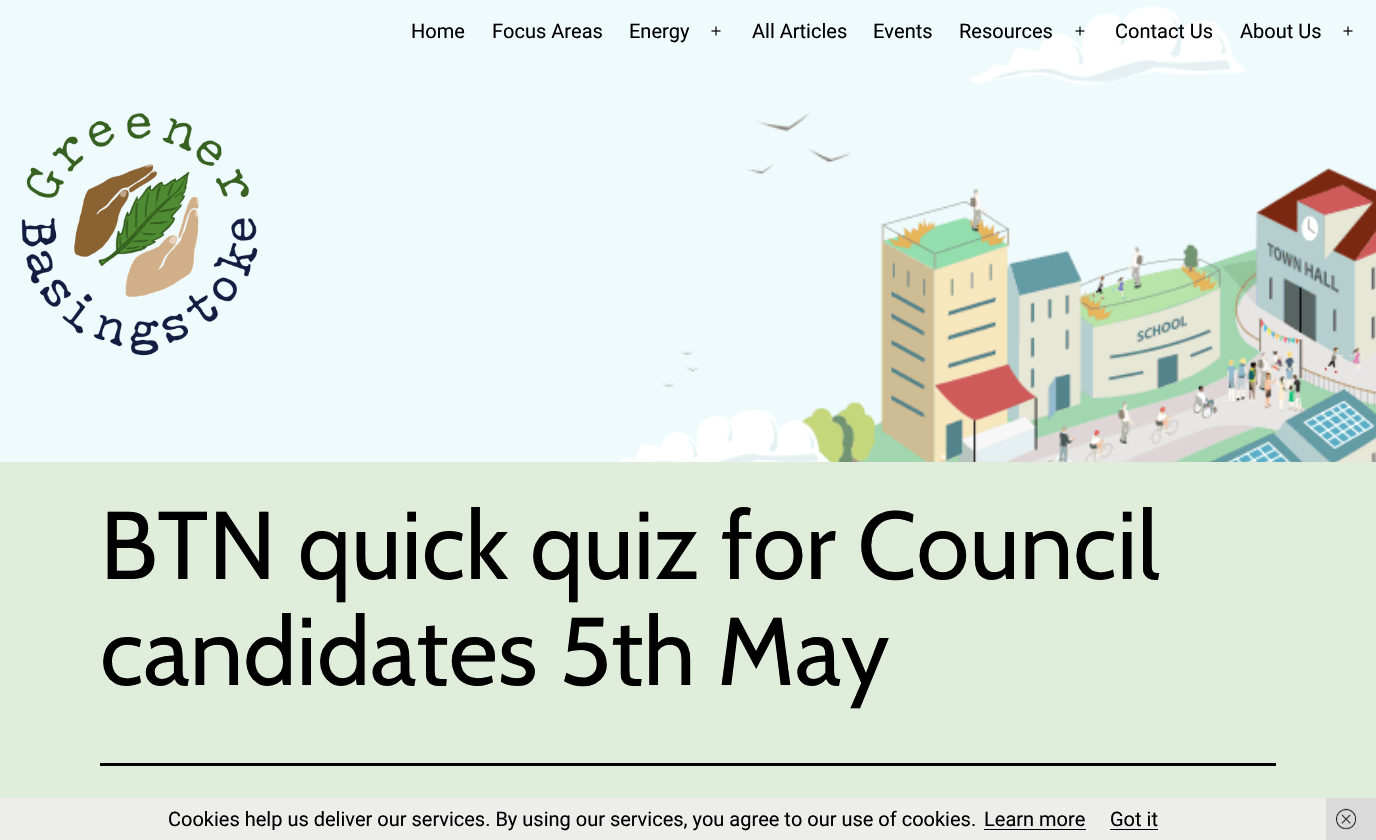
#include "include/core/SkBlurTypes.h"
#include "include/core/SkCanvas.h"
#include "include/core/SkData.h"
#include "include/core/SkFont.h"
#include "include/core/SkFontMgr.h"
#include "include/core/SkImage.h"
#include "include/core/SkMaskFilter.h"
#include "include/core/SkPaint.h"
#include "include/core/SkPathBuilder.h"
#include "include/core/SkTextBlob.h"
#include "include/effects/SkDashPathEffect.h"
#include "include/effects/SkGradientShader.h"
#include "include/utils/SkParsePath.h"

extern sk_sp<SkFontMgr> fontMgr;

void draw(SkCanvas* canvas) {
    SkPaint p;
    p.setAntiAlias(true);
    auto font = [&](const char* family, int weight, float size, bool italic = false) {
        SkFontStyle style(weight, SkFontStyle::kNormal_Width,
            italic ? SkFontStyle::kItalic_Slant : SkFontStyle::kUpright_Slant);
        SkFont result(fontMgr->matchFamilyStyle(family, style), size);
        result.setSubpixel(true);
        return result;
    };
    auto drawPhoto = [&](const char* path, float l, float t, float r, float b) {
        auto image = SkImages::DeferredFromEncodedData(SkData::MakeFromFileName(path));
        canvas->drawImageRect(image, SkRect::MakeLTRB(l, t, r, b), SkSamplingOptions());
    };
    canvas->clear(0xFFE1EDDB);
    drawPhoto("media/1.png", 0, 0, 1376, 462);
    auto font1 = font("Roboto", 400, 20);
    p.setColor(0xFF000000);
    {
        const struct { const char* s; float x, y; } items[] = {
            {"Home", 411, 38},
            {"Focus Areas", 492, 38},
            {"Energy", 629, 38},
        };
        for (auto [s, x, y] : items) {
            canvas->drawString(s, x, y, font1, p);
        }
    }
    drawPhoto("media/2.png", 711, 26, 721, 36);
    {
        const struct { const char* s; float x, y; } items[] = {
            {"All Articles", 752, 38},
            {"Events", 873, 38},
            {"Resources", 959, 38},
        };
        for (auto [s, x, y] : items) {
            canvas->drawString(s, x, y, font1, p);
        }
    }
    drawPhoto("media/3.png", 1075, 26, 1085, 36);
    canvas->drawString("Contact Us", 1115, 38, font1, p);
    canvas->drawString("About Us", 1240, 38, font1, p);
    drawPhoto("media/2.png", 1343, 26, 1353, 36);
    drawPhoto("media/4.png", 21, 113, 258, 356);
    canvas->drawRect(SkRect::MakeLTRB(100, 763, 1276, 766), p);
    auto font2 = font("Cabin", 400, 96);
    canvas->drawString("BTN quick quiz for Council", 100, 579, font2, p);
    canvas->drawString("candidates 5th May", 100, 685, font2, p);
    p.setColor(0xFFEDEEEC);
    canvas->drawRect(SkRect::MakeLTRB(0, 798, 1326, 840), p);
    p.setColor(0xFF000000);
    canvas->drawString("Cookies help us deliver our services. By using our services, you agree to our use of cookies.", 168, 826, font1, p);
    canvas->drawString("Learn more", 984, 826, font1, p);
    canvas->drawRect(SkRect::MakeLTRB(984, 829, 1086, 830), p);
    canvas->drawString("Got it", 1110, 826, font1, p);
    canvas->drawRect(SkRect::MakeLTRB(1110, 829, 1158, 830), p);
    p.setColor(0xFFD9DAD9);
    canvas->drawRect(SkRect::MakeLTRB(1326, 798, 1376, 840), p);
    drawPhoto("media/5.png", 1336, 808, 1356, 830);
}
